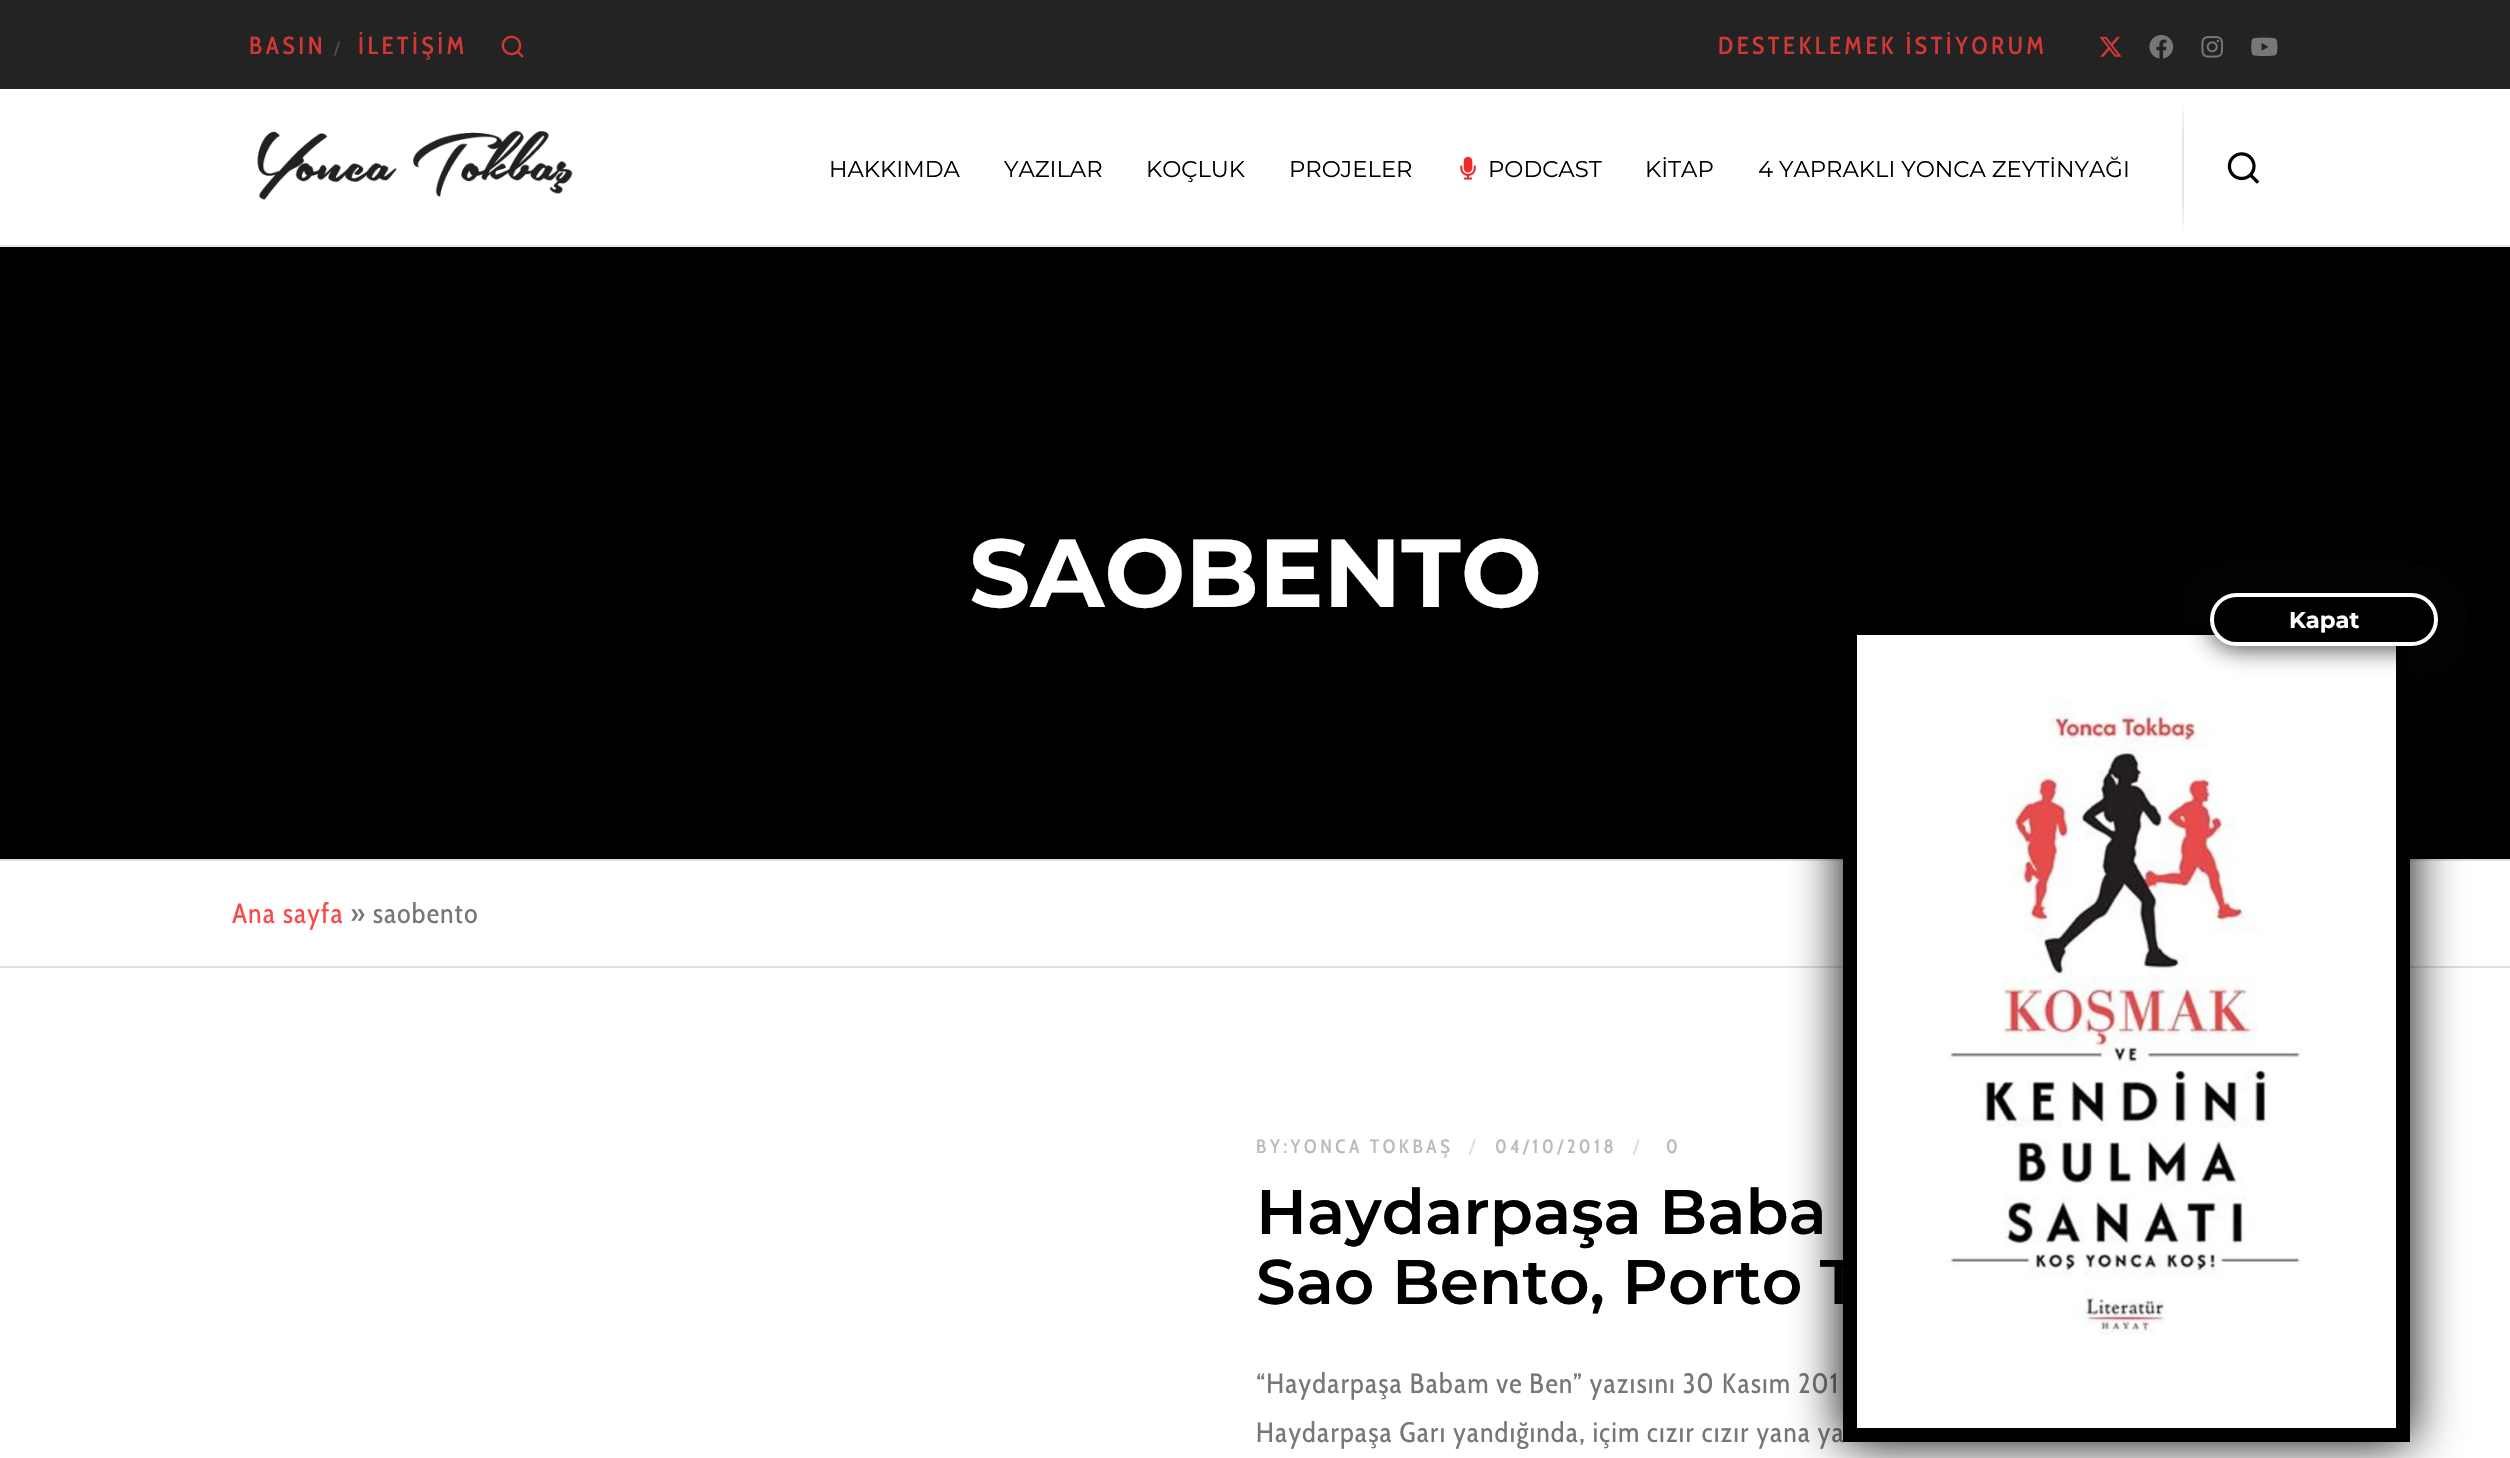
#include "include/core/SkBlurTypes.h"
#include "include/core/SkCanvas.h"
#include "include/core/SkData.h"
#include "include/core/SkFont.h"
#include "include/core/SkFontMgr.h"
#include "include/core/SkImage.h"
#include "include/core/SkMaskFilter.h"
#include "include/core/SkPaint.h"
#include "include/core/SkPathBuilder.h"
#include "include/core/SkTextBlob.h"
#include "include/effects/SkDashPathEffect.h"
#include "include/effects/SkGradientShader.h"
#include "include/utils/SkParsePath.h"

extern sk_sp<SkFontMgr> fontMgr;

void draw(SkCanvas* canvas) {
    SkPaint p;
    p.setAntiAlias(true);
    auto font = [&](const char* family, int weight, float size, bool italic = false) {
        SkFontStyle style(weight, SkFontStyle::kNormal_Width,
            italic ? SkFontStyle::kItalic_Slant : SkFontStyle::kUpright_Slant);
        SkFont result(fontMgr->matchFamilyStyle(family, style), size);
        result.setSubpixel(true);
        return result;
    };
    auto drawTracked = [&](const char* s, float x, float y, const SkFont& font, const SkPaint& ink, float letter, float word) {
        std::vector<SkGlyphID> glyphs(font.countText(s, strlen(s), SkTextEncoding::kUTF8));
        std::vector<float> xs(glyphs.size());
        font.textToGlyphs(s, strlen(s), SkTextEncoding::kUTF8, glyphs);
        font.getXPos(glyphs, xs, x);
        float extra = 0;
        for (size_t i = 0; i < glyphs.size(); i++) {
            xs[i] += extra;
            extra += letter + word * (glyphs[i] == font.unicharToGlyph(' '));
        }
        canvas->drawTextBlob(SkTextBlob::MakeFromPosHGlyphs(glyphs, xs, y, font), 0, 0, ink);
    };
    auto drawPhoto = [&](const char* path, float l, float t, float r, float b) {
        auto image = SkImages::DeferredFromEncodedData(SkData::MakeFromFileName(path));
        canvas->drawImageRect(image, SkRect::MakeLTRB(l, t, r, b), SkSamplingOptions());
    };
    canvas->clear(0xFFFFFFFF);
    p.setColor(0xFF232323);
    canvas->drawRect(SkRect::MakeLTRB(0, 0, 2510, 89), p);
    auto font1 = font("Cabin Condensed", 500, 24.5f);
    p.setColor(0xFFD23737);
    drawTracked("BASIN", 249, 54, font1, p, 3.5f, 0);
    auto font2 = font("Cabin Condensed", 500, 18);
    p.setColor(0xFF4D4D4D);
    drawTracked("/", 334, 54, font2, p, 3.5f, 0);
    p.setColor(0xFFD23737);
    drawTracked("İLETİŞİM", 358, 54, font1, p, 3.5f, 0);
    drawPhoto("media/1.png", 501, 35, 524, 58);
    drawTracked("DESTEKLEMEK İSTİYORUM", 1718, 54, font1, p, 3.5f, 0);
    drawPhoto("media/2.png", 2099, 36, 2122, 57);
    drawPhoto("media/3.png", 2149, 35, 2174, 59);
    drawPhoto("media/4.png", 2201, 36, 2223, 58);
    drawPhoto("media/5.png", 2251, 37, 2278, 56);
    p.setColor(0xFFE6E6E6);
    canvas->drawRect(SkRect::MakeLTRB(0, 245, 2510, 247), p);
    drawPhoto("media/6.png", 257, 130, 573, 200);
    auto font3 = font("Montserrat", 400, 22.75f);
    p.setColor(0xFF000000);
    {
        const struct { const char* s; float x, y; } items[] = {
            {"HAKKIMDA", 829, 177},
            {"YAZILAR", 1004, 177},
            {"KOÇLUK", 1146, 177},
            {"PROJELER", 1289, 177},
        };
        for (auto [s, x, y] : items) {
            canvas->drawString(s, x, y, font3, p);
        }
    }
    drawPhoto("media/7.png", 1460, 156, 1476, 180);
    {
        const struct { const char* s; float x, y; } items[] = {
            {"PODCAST", 1488, 177},
            {"KİTAP", 1645, 177},
            {"4 YAPRAKLI YONCA ZEYTİNYAĞI", 1758, 177},
        };
        for (auto [s, x, y] : items) {
            canvas->drawString(s, x, y, font3, p);
        }
    }
    {
        const SkColor colors[] = {0x00000000, 0x1A000000, 0x1A000000, 0x00000000};
        const float stops[] = {0.05f, 0.3f, 0.7f, 0.95f};
        const SkPoint ends[] = {{2183, 89}, {2183, 247}};
        p.setShader(SkGradientShader::MakeLinear(ends, colors, stops, 4, SkTileMode::kClamp));
        p.setAlpha(255);
    }
    canvas->drawRect(SkRect::MakeLTRB(2182, 105, 2184, 231), p);
    drawPhoto("media/8.png", 2227, 152, 2260, 184);
    p.setShader(nullptr);
    p.setColor(0xFF000000);
    canvas->drawRect(SkRect::MakeLTRB(0, 247, 2510, 859), p);
    auto font4 = font("Montserrat", 700, 96.25f);
    p.setColor(0xFFFFFFFF);
    canvas->drawString("SAOBENTO", 969, 607, font4, p);
    p.setColor(0xFFE0E0E0);
    canvas->drawRect(SkRect::MakeLTRB(0, 859, 2510, 861), p);
    canvas->drawRect(SkRect::MakeLTRB(0, 966, 2510, 968), p);
    auto font5 = font("Cabin Condensed", 400, 28);
    p.setColor(0xFFFA4949);
    drawTracked("Ana sayfa", 232, 923, font5, p, 1.22f, 0);
    p.setColor(0xFF777777);
    drawTracked("» saobento", 350, 923, font5, p, 1.22f, 0);
    auto font6 = font("Cabin Condensed", 500, 19.25f);
    p.setColor(0xFFBBBBBB);
    drawTracked("BY:YONCA TOKBAŞ", 1256, 1153, font6, p, 3.5f, 0);
    p.setColor(0xFFDDDDDD);
    drawTracked("/", 1469, 1153, font6, p, 3.5f, 0);
    p.setColor(0xFFBBBBBB);
    drawTracked("04/10/2018", 1495, 1153, font6, p, 3.5f, 0);
    p.setColor(0xFFDDDDDD);
    drawTracked("/", 1633, 1153, font6, p, 3.5f, 0);
    p.setColor(0xFFBBBBBB);
    drawTracked("0", 1666, 1153, font6, p, 3.5f, 0);
    auto font7 = font("Montserrat", 600, 63);
    p.setColor(0xFF000000);
    canvas->drawString("Haydarpaşa Baba", 1256, 1234, font7, p);
    canvas->drawString("Sao Bento, Porto T", 1256, 1304, font7, p);
    p.setColor(0xFF777777);
    drawTracked("“Haydarpaşa Babam ve Ben” yazısını 30 Kasım 201", 1256, 1393, font5, p, 1.22f, 0);
    drawTracked("Haydarpaşa Garı yandığında, içim cızır cızır yana ya", 1256, 1442, font5, p, 1.22f, 0);
    p.setColor(0xFF020202);
    p.setMaskFilter(SkMaskFilter::MakeBlur(kNormal_SkBlurStyle, 26));
    canvas->drawRoundRect(SkRect::MakeLTRB(1843, 621, 2410, 1442), 5, 5, p);
    p.setMaskFilter(nullptr);
    p.setColor(0xFFFFFFFF);
    canvas->drawRect(SkRect::MakeLTRB(1857, 635, 2396, 1428), p);
    p.setStyle(SkPaint::kStroke_Style);
    p.setStrokeWidth(14);
    p.setColor(0xFF000000);
    canvas->drawPath(SkPathBuilder().moveTo(1850, 628).lineTo(2403, 628).lineTo(2403, 1435).lineTo(1850, 1435).close().detach(), p);
    p.setStyle(SkPaint::kFill_Style);
    p.setColor(0xBF020202);
    p.setMaskFilter(SkMaskFilter::MakeBlur(kNormal_SkBlurStyle, 13));
    canvas->drawRoundRect(SkRect::MakeLTRB(2209, 592, 2440, 648), 28, 28, p);
    p.setMaskFilter(nullptr);
    p.setColor(0xFF000000);
    canvas->drawRoundRect(SkRect::MakeLTRB(2212, 595, 2436, 644), 24.5f, 24.5f, p);
    p.setStyle(SkPaint::kStroke_Style);
    p.setStrokeWidth(4);
    p.setColor(0xFFFFFFFF);
    canvas->drawRoundRect(SkRect::MakeLTRB(2212, 595, 2436, 644), 24.5f, 24.5f, p);
    auto font8 = font("Montserrat", 700, 22.75f);
    p.setStyle(SkPaint::kFill_Style);
    canvas->drawString("Kapat", 2289, 628, font8, p);
    drawPhoto("media/9.png", 1946, 700, 2302, 1335);
}
